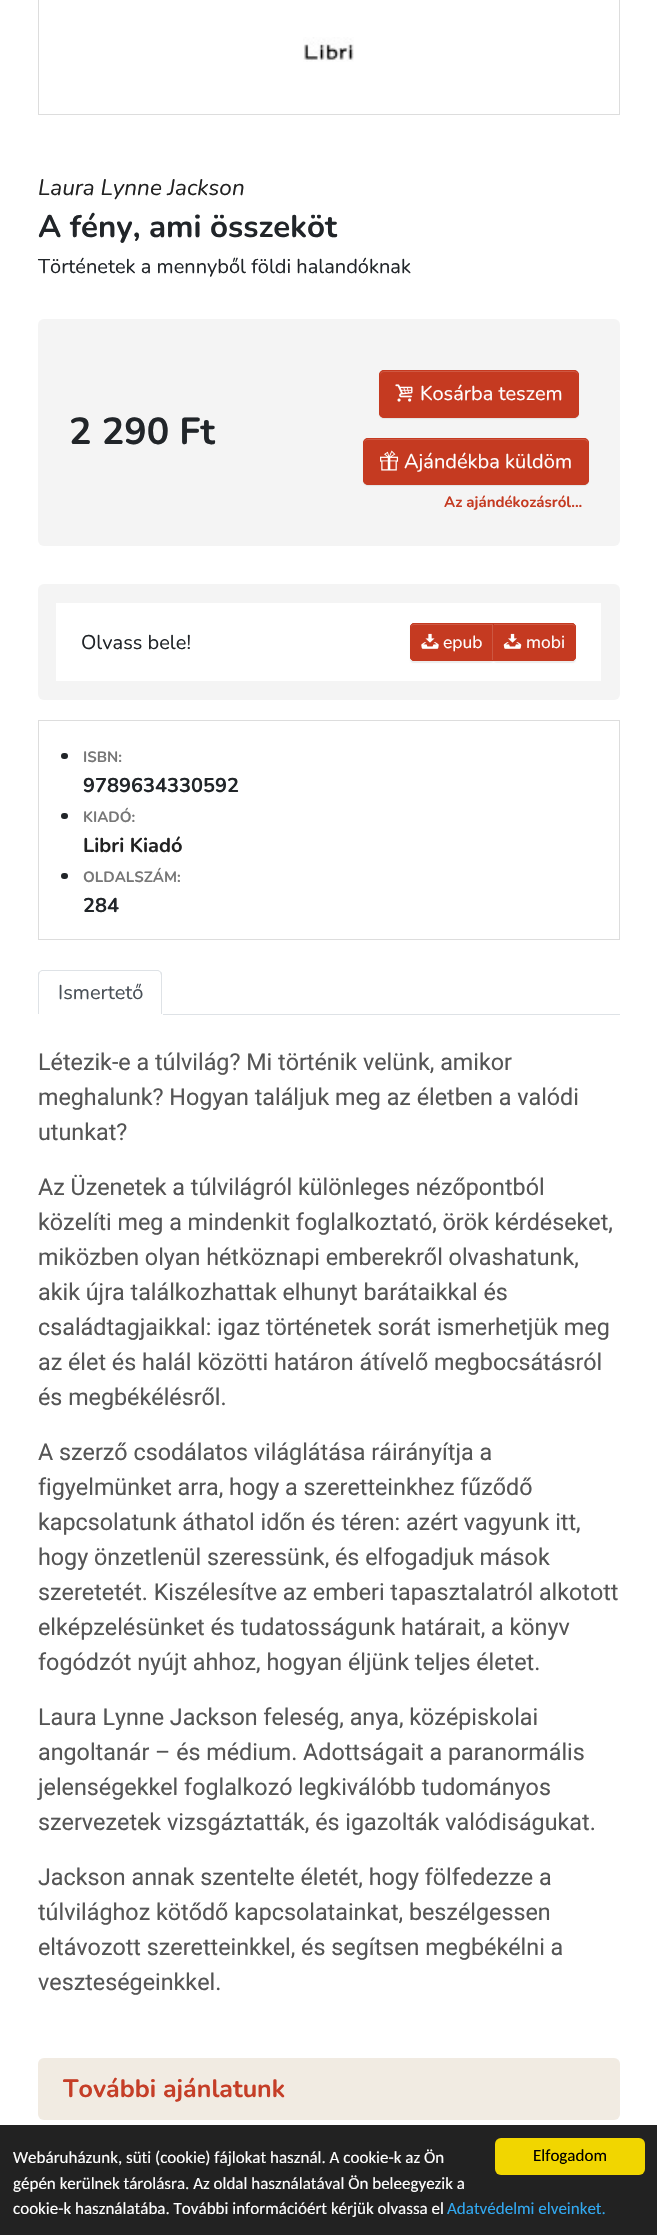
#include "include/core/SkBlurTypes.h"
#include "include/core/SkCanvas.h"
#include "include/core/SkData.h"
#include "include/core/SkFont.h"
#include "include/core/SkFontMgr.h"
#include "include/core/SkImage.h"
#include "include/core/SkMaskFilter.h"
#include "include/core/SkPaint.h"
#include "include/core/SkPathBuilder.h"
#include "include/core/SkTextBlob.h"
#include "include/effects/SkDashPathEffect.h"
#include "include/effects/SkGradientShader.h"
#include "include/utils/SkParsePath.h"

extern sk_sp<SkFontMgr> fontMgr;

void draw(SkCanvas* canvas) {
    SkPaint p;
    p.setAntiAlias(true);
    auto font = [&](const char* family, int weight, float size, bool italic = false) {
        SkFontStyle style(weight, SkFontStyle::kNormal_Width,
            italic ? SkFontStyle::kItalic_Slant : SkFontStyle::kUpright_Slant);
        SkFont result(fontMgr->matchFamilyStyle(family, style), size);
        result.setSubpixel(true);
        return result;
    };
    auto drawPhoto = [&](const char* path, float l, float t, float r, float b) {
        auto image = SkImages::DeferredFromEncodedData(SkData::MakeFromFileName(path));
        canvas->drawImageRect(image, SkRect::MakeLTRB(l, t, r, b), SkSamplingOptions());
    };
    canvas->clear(0xFFFFFFFF);
    p.setStyle(SkPaint::kStroke_Style);
    p.setStrokeWidth(1);
    p.setColor(0xFFDDDDDD);
    canvas->drawRect(SkRect::MakeLTRB(38.5f, -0.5f, 619.5f, 114.5f), p);
    drawPhoto("media/1.png", 303, 37, 354, 62);
    auto font1 = font("Nunito", 400, 22.5f, true);
    p.setStyle(SkPaint::kFill_Style);
    p.setColor(0xFF222222);
    canvas->drawString("Laura Lynne Jackson", 38, 195, font1, p);
    auto font2 = font("Nunito", 700, 31.25f);
    p.setColor(0xFF212529);
    canvas->drawString("A fény, ami összeköt", 38, 237, font2, p);
    auto font3 = font("Nunito", 400, 20);
    canvas->drawString("Történetek a mennyből földi halandóknak", 38, 273, font3, p);
    p.setColor(0xFFF4F4F4);
    canvas->drawRoundRect(SkRect::MakeLTRB(38, 319, 620, 546), 6, 6, p);
    auto font4 = font("Nunito", 700, 37.5f);
    p.setColor(0xFF212529);
    canvas->drawString("2 290 Ft", 69, 444, font4, p);
    p.setColor(0x12000000);
    p.setMaskFilter(SkMaskFilter::MakeBlur(kNormal_SkBlurStyle, 0.5f));
    canvas->drawRoundRect(SkRect::MakeLTRB(379, 371, 579, 419), 5, 5, p);
    p.setMaskFilter(nullptr);
    p.setColor(0xFFC53A21);
    canvas->drawRoundRect(SkRect::MakeLTRB(379, 370, 579, 418), 5, 5, p);
    p.setColor(0xFFCE5842);
    canvas->drawPath(SkPathBuilder().moveTo(384, 372).lineTo(574, 372).cubicTo(576, 372, 578, 374, 578, 376).lineTo(578, 375).cubicTo(578, 373, 576, 371, 574, 371).lineTo(384, 371).cubicTo(382, 371, 380, 373, 380, 375).lineTo(380, 376).cubicTo(380, 374, 382, 372, 384, 372).close().detach(), p);
    p.setStyle(SkPaint::kStroke_Style);
    p.setColor(0xFFC53A21);
    canvas->drawRoundRect(SkRect::MakeLTRB(379.5f, 370.5f, 578.5f, 417.5f), 4.5f, 4.5f, p);
    drawPhoto("media/2.png", 395, 384, 413, 402);
    p.setStyle(SkPaint::kFill_Style);
    p.setColor(0xFFFFFFFF);
    canvas->drawString("Kosárba teszem", 420, 400, font3, p);
    p.setColor(0x12000000);
    p.setMaskFilter(SkMaskFilter::MakeBlur(kNormal_SkBlurStyle, 0.5f));
    canvas->drawRoundRect(SkRect::MakeLTRB(363, 439, 589, 486), 5, 5, p);
    p.setMaskFilter(nullptr);
    p.setColor(0xFFC53A21);
    canvas->drawRoundRect(SkRect::MakeLTRB(363, 438, 589, 485), 5, 5, p);
    p.setColor(0xFFCE5842);
    canvas->drawPath(SkPathBuilder().moveTo(368, 440).lineTo(584, 440).cubicTo(586, 440, 588, 442, 588, 444).cubicTo(588, 441, 587, 439, 584, 439).lineTo(368, 439).cubicTo(365, 439, 364, 441, 364, 444).cubicTo(364, 442, 365, 440, 368, 440).close().detach(), p);
    p.setStyle(SkPaint::kStroke_Style);
    p.setColor(0xFFC53A21);
    canvas->drawRoundRect(SkRect::MakeLTRB(363.5f, 438.5f, 588.5f, 484.5f), 4.5f, 4.5f, p);
    drawPhoto("media/3.png", 380, 450, 399, 471);
    p.setStyle(SkPaint::kFill_Style);
    p.setColor(0xFFFFFFFF);
    canvas->drawString("Ajándékba küldöm", 404, 468, font3, p);
    auto font5 = font("Nunito", 700, 15);
    p.setColor(0xFFC53A21);
    canvas->drawString("Az ajándékozásról...", 444, 507, font5, p);
    p.setColor(0xFFF4F4F4);
    canvas->drawRoundRect(SkRect::MakeLTRB(38, 584, 620, 700), 6, 6, p);
    p.setColor(0xFFFFFFFF);
    canvas->drawRect(SkRect::MakeLTRB(56, 603, 601, 681), p);
    p.setColor(0xFF212529);
    canvas->drawString("Olvass bele!", 81, 649, font3, p);
    p.setColor(0x12000000);
    p.setMaskFilter(SkMaskFilter::MakeBlur(kNormal_SkBlurStyle, 0.5f));
    canvas->drawRoundRect(SkRect::MakeLTRB(410, 624, 494, 663), 4, 4, p);
    p.setMaskFilter(nullptr);
    p.setColor(0xFFC53A21);
    canvas->drawPath(SkPathBuilder().moveTo(414, 623).lineTo(494, 623).lineTo(494, 661).lineTo(414, 661).cubicTo(412, 661, 410, 659, 410, 657).lineTo(410, 627).cubicTo(410, 625, 412, 623, 414, 623).close().detach(), p);
    p.setColor(0xFFCE5842);
    canvas->drawPath(SkPathBuilder().moveTo(414, 625).lineTo(492, 625).lineTo(492, 660).lineTo(493, 660).lineTo(493, 624).lineTo(414, 624).cubicTo(412, 624, 411, 625, 411, 626).lineTo(411, 628).cubicTo(411, 626, 412, 625, 414, 625).close().detach(), p);
    p.setStyle(SkPaint::kStroke_Style);
    p.setColor(0xFFC53A21);
    canvas->drawPath(SkPathBuilder().moveTo(414, 623.5f).lineTo(493.5f, 623.5f).lineTo(493.5f, 660.5f).lineTo(414, 660.5f).cubicTo(412, 660.5f, 410.5f, 659, 410.5f, 657).lineTo(410.5f, 627).cubicTo(410.5f, 625, 412, 623.5f, 414, 623.5f).close().detach(), p);
    drawPhoto("media/4.png", 421, 633, 439, 649);
    auto font6 = font("Nunito", 400, 17.5f);
    p.setStyle(SkPaint::kFill_Style);
    p.setColor(0xFFFFFFFF);
    canvas->drawString("epub", 443, 648, font6, p);
    p.setColor(0x12000000);
    p.setMaskFilter(SkMaskFilter::MakeBlur(kNormal_SkBlurStyle, 0.5f));
    canvas->drawRoundRect(SkRect::MakeLTRB(493, 624, 576, 663), 4, 4, p);
    p.setMaskFilter(nullptr);
    p.setColor(0xFFC53A21);
    canvas->drawPath(SkPathBuilder().moveTo(493, 623).lineTo(572, 623).cubicTo(574, 623, 576, 625, 576, 627).lineTo(576, 657).cubicTo(576, 659, 574, 661, 572, 661).lineTo(493, 661).close().detach(), p);
    p.setColor(0xFFCE5842);
    canvas->drawPath(SkPathBuilder().moveTo(494, 625).lineTo(572, 625).cubicTo(574, 625, 575, 626, 575, 628).lineTo(575, 626).cubicTo(575, 625, 574, 624, 572, 624).lineTo(494, 624).close().detach(), p);
    p.setStyle(SkPaint::kStroke_Style);
    p.setColor(0xFFC53A21);
    canvas->drawPath(SkPathBuilder().moveTo(493.5f, 623.5f).lineTo(572, 623.5f).cubicTo(574, 623.5f, 575.5f, 625, 575.5f, 627).lineTo(575.5f, 657).cubicTo(575.5f, 659, 574, 660.5f, 572, 660.5f).lineTo(493.5f, 660.5f).close().detach(), p);
    drawPhoto("media/5.png", 503, 633, 522, 649);
    p.setStyle(SkPaint::kFill_Style);
    p.setColor(0xFFFFFFFF);
    canvas->drawString("mobi", 526, 648, font6, p);
    p.setStyle(SkPaint::kStroke_Style);
    p.setColor(0xFFDDDDDD);
    canvas->drawRect(SkRect::MakeLTRB(38.5f, 720.5f, 619.5f, 939.5f), p);
    p.setStyle(SkPaint::kFill_Style);
    p.setColor(0xFF212529);
    canvas->drawRoundRect(SkRect::MakeLTRB(61, 753, 68, 759), 3, 3, p);
    p.setColor(0xFF777777);
    canvas->drawString("ISBN:", 83, 762, font5, p);
    auto font7 = font("Nunito", 700, 20);
    p.setColor(0xFF212529);
    canvas->drawString("9789634330592", 83, 792, font7, p);
    canvas->drawRoundRect(SkRect::MakeLTRB(61, 813, 68, 819), 3, 3, p);
    p.setColor(0xFF777777);
    canvas->drawString("KIADÓ:", 83, 822, font5, p);
    p.setColor(0xFF222222);
    canvas->drawString("Libri Kiadó", 83, 852, font7, p);
    p.setColor(0xFF212529);
    canvas->drawRoundRect(SkRect::MakeLTRB(61, 873, 68, 879), 3, 3, p);
    p.setColor(0xFF777777);
    canvas->drawString("OLDALSZÁM:", 83, 882, font5, p);
    p.setColor(0xFF212529);
    canvas->drawString("284", 83, 912, font7, p);
    p.setColor(0xFFDEE2E6);
    canvas->drawRect(SkRect::MakeLTRB(163, 1014, 620, 1015), p);
    canvas->drawPath(SkPathBuilder().moveTo(42, 970).cubicTo(41, 970, 40, 971, 39, 972).lineTo(40, 972).lineTo(42, 971).lineTo(158, 971).lineTo(160, 972).lineTo(161, 972).cubicTo(160, 971, 159, 970, 158, 970).close().detach(), p);
    canvas->drawPath(SkPathBuilder().moveTo(161, 972).cubicTo(162, 972, 162, 974, 162, 975).lineTo(162, 1014).lineTo(161, 1014).lineTo(161, 975).lineTo(160, 972).close().detach(), p);
    canvas->drawPath(SkPathBuilder().moveTo(39, 972).cubicTo(38, 972, 38, 974, 38, 975).lineTo(38, 1014).lineTo(39, 1014).lineTo(39, 975).lineTo(40, 972).close().detach(), p);
    p.setColor(0xFF495057);
    canvas->drawString("Ismertető", 58, 999, font3, p);
    auto font8 = font("Roboto", 400, 23.3f);
    p.setColor(0xFF555555);
    {
        const struct { const char* s; float x, y; } items[] = {
            {"Létezik-e a túlvilág? Mi történik velünk, amikor", 38, 1070},
            {"meghalunk? Hogyan találjuk meg az életben a valódi", 38, 1105},
            {"utunkat?", 38, 1140},
            {"Az Üzenetek a túlvilágról különleges nézőpontból", 38, 1195},
            {"közelíti meg a mindenkit foglalkoztató, örök kérdéseket,", 38, 1230},
            {"miközben olyan hétköznapi emberekről olvashatunk,", 38, 1265},
            {"akik újra találkozhattak elhunyt barátaikkal és", 38, 1300},
            {"családtagjaikkal: igaz történetek sorát ismerhetjük meg", 38, 1335},
            {"az élet és halál közötti határon átívelő megbocsátásról", 38, 1370},
            {"és megbékélésről.", 38, 1405},
            {"A szerző csodálatos világlátása ráirányítja a", 38, 1460},
            {"figyelmünket arra, hogy a szeretteinkhez fűződő", 38, 1495},
            {"kapcsolatunk áthatol időn és téren: azért vagyunk itt,", 38, 1530},
            {"hogy önzetlenül szeressünk, és elfogadjuk mások", 38, 1565},
            {"szeretetét. Kiszélesítve az emberi tapasztalatról alkotott", 38, 1600},
            {"elképzelésünket és tudatosságunk határait, a könyv", 38, 1635},
            {"fogódzót nyújt ahhoz, hogyan éljünk teljes életet.", 38, 1670},
            {"Laura Lynne Jackson feleség, anya, középiskolai", 38, 1725},
            {"angoltanár – és médium. Adottságait a paranormális", 38, 1760},
            {"jelenségekkel foglalkozó legkiválóbb tudományos", 38, 1795},
            {"szervezetek vizsgáztatták, és igazolták valódiságukat.", 38, 1830},
            {"Jackson annak szentelte életét, hogy fölfedezze a", 38, 1885},
            {"túlvilághoz kötődő kapcsolatainkat, beszélgessen", 38, 1920},
            {"eltávozott szeretteinkkel, és segítsen megbékélni a", 38, 1955},
            {"veszteségeinkkel.", 38, 1990},
        };
        for (auto [s, x, y] : items) {
            canvas->drawString(s, x, y, font8, p);
        }
    }
    p.setColor(0xFFF1EBE2);
    canvas->drawRoundRect(SkRect::MakeLTRB(38, 2058, 620, 2120), 6, 6, p);
    auto font9 = font("Nunito", 700, 25);
    p.setColor(0xFFC53E27);
    canvas->drawString("További ajánlatunk", 63, 2097, font9, p);
    p.setColor(0xFF222222);
    canvas->drawRect(SkRect::MakeLTRB(0, 2125, 657, 2235), p);
    auto font10 = font("Carlito", 400, 17);
    p.setColor(0xFFFFFFFF);
    {
        const struct { const char* s; float x, y; } items[] = {
            {"Webáruházunk, süti (cookie) fájlokat használ. A cookie-k az Ön", 13, 2163},
            {"gépén kerülnek tárolásra. Az oldal használatával Ön beleegyezik a", 13, 2189},
            {"cookie-k használatába. További információért kérjük olvassa el", 13, 2214},
        };
        for (auto [s, x, y] : items) {
            canvas->drawString(s, x, y, font10, p);
        }
    }
    p.setColor(0xFF31A8F0);
    canvas->drawString("Adatvédelmi elveinket.", 447, 2214, font10, p);
    p.setColor(0xFFF1D600);
    canvas->drawRoundRect(SkRect::MakeLTRB(495, 2138, 645, 2175), 6, 6, p);
    p.setColor(0xFF000000);
    canvas->drawString("Elfogadom", 533, 2161, font10, p);
}
